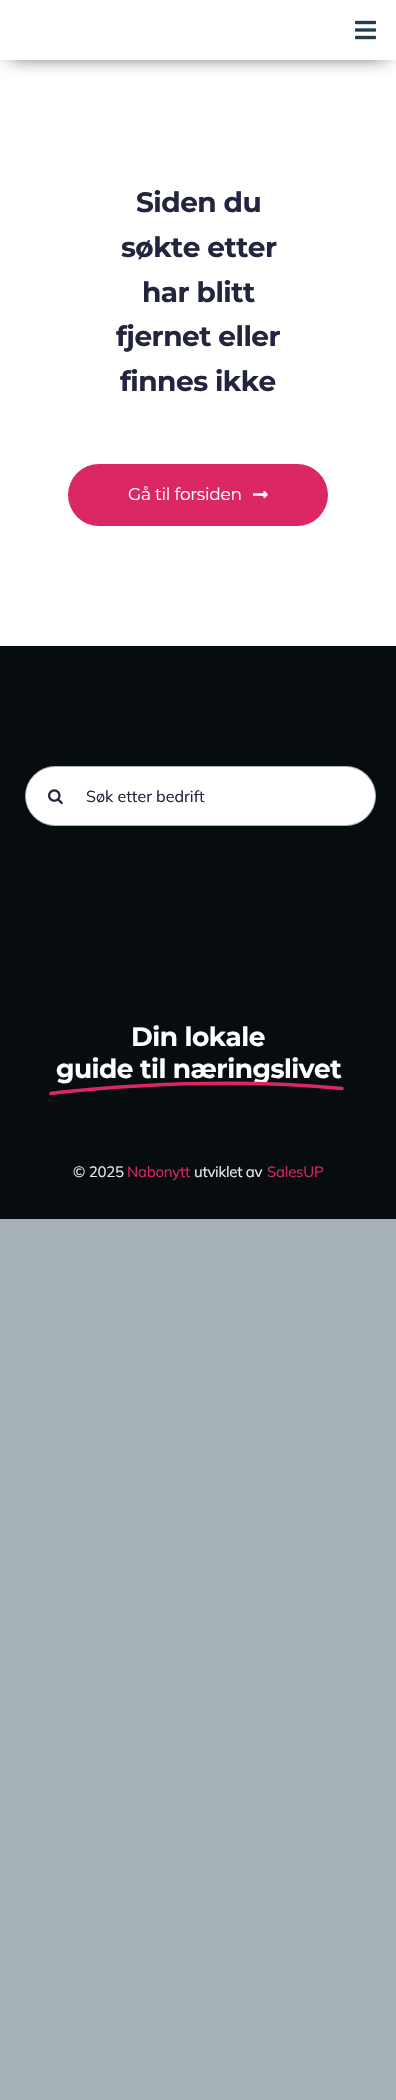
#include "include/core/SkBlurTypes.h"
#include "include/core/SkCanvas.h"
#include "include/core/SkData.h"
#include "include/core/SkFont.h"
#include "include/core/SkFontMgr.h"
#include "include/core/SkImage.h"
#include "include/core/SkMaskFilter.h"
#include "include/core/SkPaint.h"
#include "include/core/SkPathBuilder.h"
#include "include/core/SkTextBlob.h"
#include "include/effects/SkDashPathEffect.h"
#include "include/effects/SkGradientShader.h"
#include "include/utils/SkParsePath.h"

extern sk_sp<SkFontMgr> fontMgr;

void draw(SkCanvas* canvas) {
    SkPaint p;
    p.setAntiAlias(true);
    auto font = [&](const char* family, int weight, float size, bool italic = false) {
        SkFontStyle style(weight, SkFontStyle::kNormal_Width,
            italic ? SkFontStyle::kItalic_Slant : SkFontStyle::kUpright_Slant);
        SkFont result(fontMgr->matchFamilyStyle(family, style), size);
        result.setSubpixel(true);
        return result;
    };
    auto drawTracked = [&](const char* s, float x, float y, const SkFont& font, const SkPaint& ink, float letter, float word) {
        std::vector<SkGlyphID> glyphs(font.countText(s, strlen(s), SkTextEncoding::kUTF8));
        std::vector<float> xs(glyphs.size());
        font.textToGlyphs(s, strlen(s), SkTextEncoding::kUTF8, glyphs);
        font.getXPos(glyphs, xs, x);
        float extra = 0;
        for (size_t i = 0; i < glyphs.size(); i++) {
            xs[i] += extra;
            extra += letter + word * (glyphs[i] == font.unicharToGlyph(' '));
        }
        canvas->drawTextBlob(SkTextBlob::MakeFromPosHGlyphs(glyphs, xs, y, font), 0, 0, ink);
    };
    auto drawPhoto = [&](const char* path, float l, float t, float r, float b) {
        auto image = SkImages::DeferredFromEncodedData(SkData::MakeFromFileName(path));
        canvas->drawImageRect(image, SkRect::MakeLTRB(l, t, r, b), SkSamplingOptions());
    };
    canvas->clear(0xFFA7B1B8);
    p.setColor(0xFFFFFFFF);
    canvas->drawRect(SkRect::MakeLTRB(0, 0, 396, 646), p);
    canvas->save();
    canvas->clipRect(SkRect::MakeLTRB(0, 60, 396, 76));
    p.setColor(0xFF22253D);
    p.setMaskFilter(SkMaskFilter::MakeBlur(kNormal_SkBlurStyle, 10));
    canvas->drawRect(SkRect::MakeLTRB(10, 15, 386, 55), p);
    p.setMaskFilter(nullptr);
    canvas->restore();
    drawPhoto("media/1.png", 355, 20, 376, 40);
    auto font1 = font("Montserrat", 700, 28);
    {
        const struct { const char* s; float x, y; } items[] = {
            {"Siden du", 136, 212},
            {"søkte etter", 121, 257},
            {"har blitt", 142, 302},
            {"fjernet eller", 116, 346},
            {"finnes ikke", 120, 391},
        };
        for (auto [s, x, y] : items) {
            drawTracked(s, x, y, font1, p, -0.5f, 0);
        }
    }
    p.setColor(0xFFDB2763);
    canvas->drawRoundRect(SkRect::MakeLTRB(68, 464, 328, 526), 31, 31, p);
    auto font2 = font("Montserrat", 400, 17);
    p.setColor(0xFFFFFFFF);
    drawTracked("Gå til forsiden", 128, 500, font2, p, -0.25f, 0);
    drawPhoto("media/2.png", 253, 490, 268, 499);
    p.setColor(0xFF070C0F);
    canvas->drawRect(SkRect::MakeLTRB(0, 646, 396, 1219), p);
    p.setColor(0xFFFFFFFF);
    canvas->drawRoundRect(SkRect::MakeLTRB(25.5f, 766.5f, 375.5f, 825.5f), 29.5f, 29.5f, p);
    p.setStyle(SkPaint::kStroke_Style);
    p.setStrokeWidth(1);
    p.setColor(0xFFA7B1B8);
    canvas->drawRoundRect(SkRect::MakeLTRB(25.5f, 766.5f, 375.5f, 825.5f), 29.5f, 29.5f, p);
    drawPhoto("media/3.png", 48, 789, 63, 805);
    auto font3 = font("Mulish", 400, 16);
    p.setStyle(SkPaint::kFill_Style);
    p.setColor(0xFF22253D);
    canvas->drawString("Søk etter bedrift", 86, 802, font3, p);
    auto font4 = font("Montserrat", 700, 26.4f);
    p.setColor(0xFFFFFFFF);
    drawTracked("Din lokale", 131, 1046, font4, p, -0.5f, 0);
    drawTracked("guide til næringslivet", 56, 1078, font4, p, -0.5f, 0);
    p.setStyle(SkPaint::kStroke_Style);
    p.setStrokeWidth(3.6f);
    p.setStrokeCap(SkPaint::kRound_Cap);
    p.setStrokeJoin(SkPaint::kRound_Join);
    p.setColor(0xFFDB2763);
    canvas->drawPath(SkPathBuilder().moveTo(51, 1093.5f).cubicTo(51, 1093.5f, 197, 1074.5f, 342, 1088.5f).detach(), p);
    auto font5 = font("Mulish", 400, 15);
    p.setStyle(SkPaint::kFill_Style);
    p.setColor(0xFFE9ECED);
    drawTracked("© 2025", 73, 1177, font5, p, -0.25f, 0);
    p.setColor(0xFFDB2763);
    drawTracked("Nabonytt", 127, 1177, font5, p, -0.25f, 0);
    p.setColor(0xFFE9ECED);
    drawTracked("utviklet av", 194, 1177, font5, p, -0.25f, 0);
    p.setColor(0xFFDB2763);
    drawTracked("SalesUP", 267, 1177, font5, p, -0.25f, 0);
}
